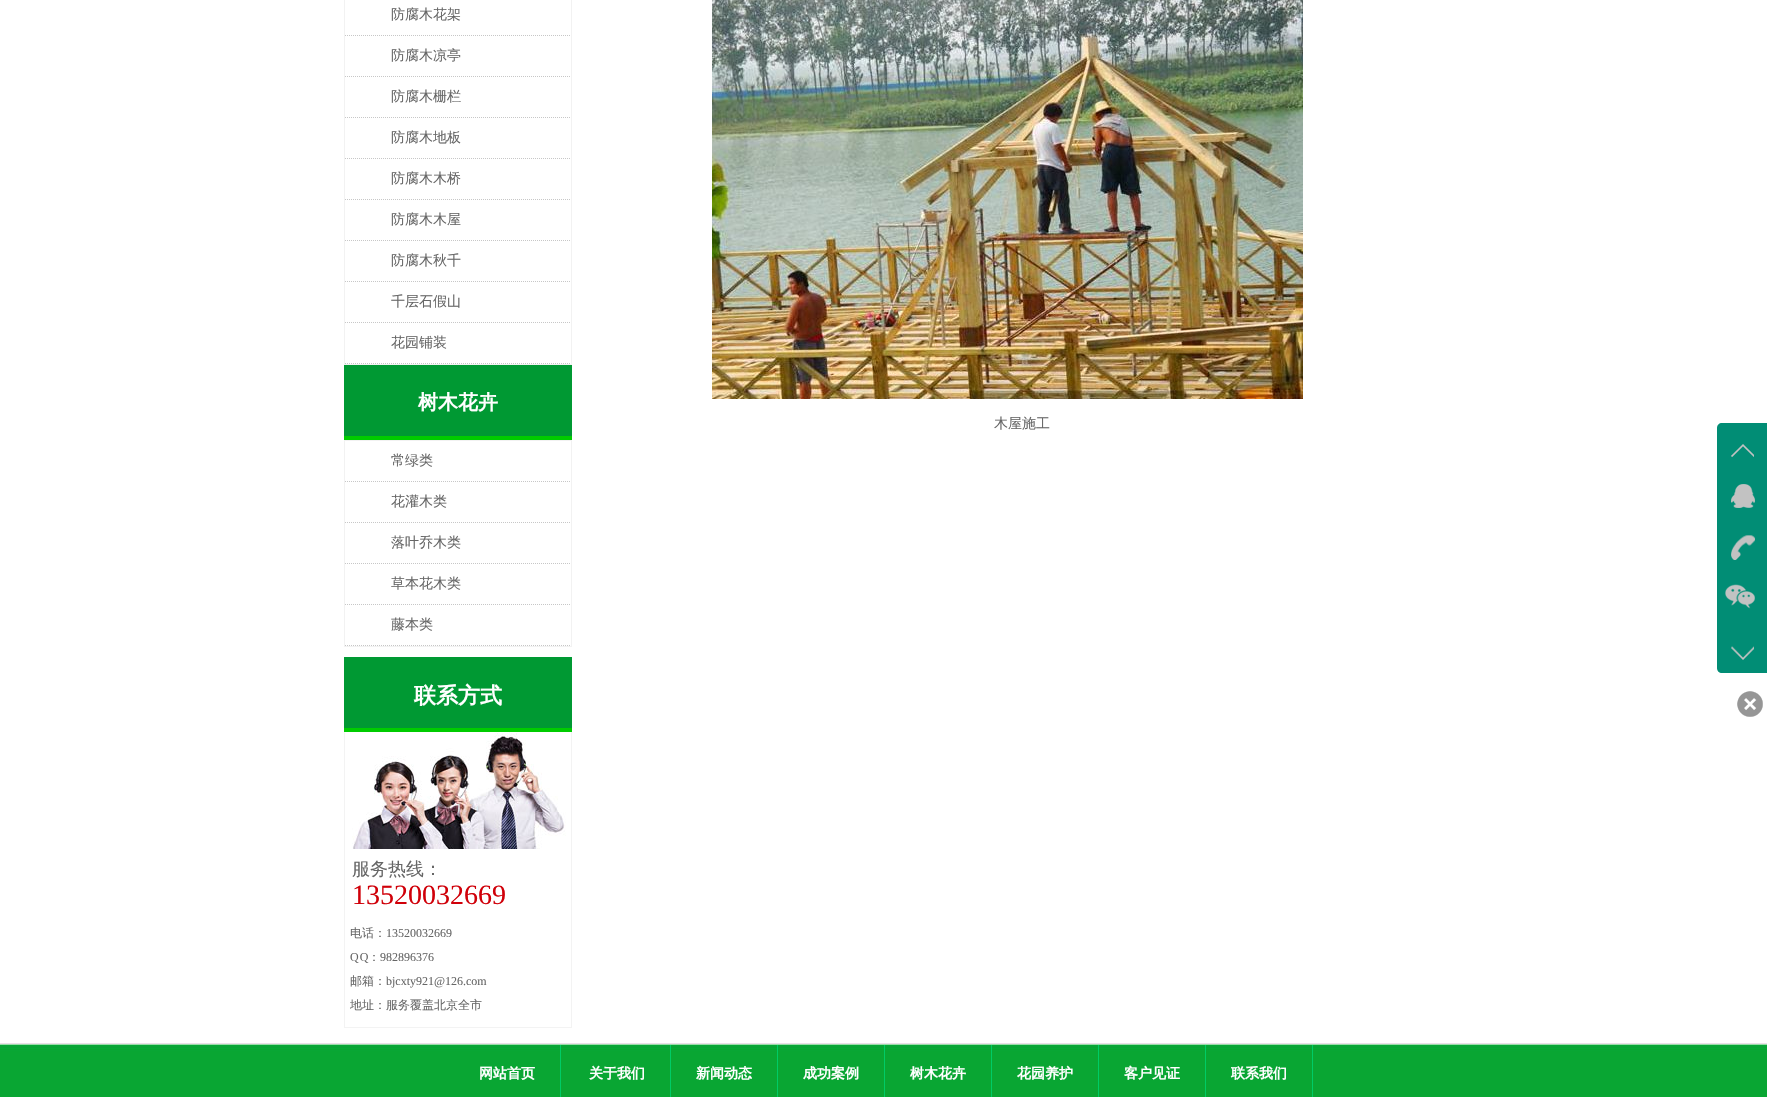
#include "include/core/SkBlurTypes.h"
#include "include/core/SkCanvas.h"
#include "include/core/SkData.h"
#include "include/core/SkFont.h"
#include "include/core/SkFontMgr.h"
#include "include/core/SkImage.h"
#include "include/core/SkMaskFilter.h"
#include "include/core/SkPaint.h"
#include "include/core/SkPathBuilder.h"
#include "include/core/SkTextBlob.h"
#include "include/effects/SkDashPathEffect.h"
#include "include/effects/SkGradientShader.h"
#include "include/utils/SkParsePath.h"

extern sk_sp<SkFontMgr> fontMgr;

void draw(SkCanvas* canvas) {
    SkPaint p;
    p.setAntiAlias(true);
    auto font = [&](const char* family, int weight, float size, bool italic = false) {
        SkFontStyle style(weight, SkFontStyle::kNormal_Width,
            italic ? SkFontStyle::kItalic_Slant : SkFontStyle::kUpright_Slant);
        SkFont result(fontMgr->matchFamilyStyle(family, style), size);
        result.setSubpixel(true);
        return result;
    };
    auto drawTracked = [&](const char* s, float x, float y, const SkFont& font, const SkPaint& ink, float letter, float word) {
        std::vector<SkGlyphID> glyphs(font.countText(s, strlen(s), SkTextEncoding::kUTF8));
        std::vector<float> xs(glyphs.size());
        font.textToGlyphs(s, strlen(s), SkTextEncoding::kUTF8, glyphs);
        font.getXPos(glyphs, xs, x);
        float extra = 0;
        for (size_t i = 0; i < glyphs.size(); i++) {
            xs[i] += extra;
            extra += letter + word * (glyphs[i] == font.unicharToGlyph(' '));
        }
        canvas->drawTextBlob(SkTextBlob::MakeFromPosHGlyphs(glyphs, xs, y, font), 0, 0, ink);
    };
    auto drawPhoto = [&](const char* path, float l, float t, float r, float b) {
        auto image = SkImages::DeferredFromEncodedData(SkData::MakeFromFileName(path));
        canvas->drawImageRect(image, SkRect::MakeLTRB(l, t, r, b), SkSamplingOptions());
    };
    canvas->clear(0xFFFFFFFF);
    p.setStyle(SkPaint::kStroke_Style);
    p.setStrokeWidth(1);
    p.setColor(0xFFF2F2F2);
    canvas->drawRect(SkRect::MakeLTRB(344.5f, -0.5f, 571.5f, 364.5f), p);
    p.setColor(0xFFC7C7C7);
    p.setPathEffect(SkDashPathEffect::Make({{1, 1}}, 0));
    canvas->drawPath(SkPathBuilder().moveTo(345, 35.5f).lineTo(571, 35.5f).detach(), p);
    p.setPathEffect(nullptr);
    auto font1 = font("WenQuanYi Zen Hei", 500, 14);
    p.setStyle(SkPaint::kFill_Style);
    p.setColor(0xFF666666);
    canvas->drawString("防腐木花架", 391, 19, font1, p);
    p.setStyle(SkPaint::kStroke_Style);
    p.setColor(0xFFC7C7C7);
    p.setPathEffect(SkDashPathEffect::Make({{1, 1}}, 0));
    canvas->drawPath(SkPathBuilder().moveTo(345, 76.5f).lineTo(571, 76.5f).detach(), p);
    p.setPathEffect(nullptr);
    p.setStyle(SkPaint::kFill_Style);
    p.setColor(0xFF666666);
    canvas->drawString("防腐木凉亭", 391, 60, font1, p);
    p.setStyle(SkPaint::kStroke_Style);
    p.setColor(0xFFC7C7C7);
    p.setPathEffect(SkDashPathEffect::Make({{1, 1}}, 0));
    canvas->drawPath(SkPathBuilder().moveTo(345, 117.5f).lineTo(571, 117.5f).detach(), p);
    p.setPathEffect(nullptr);
    p.setStyle(SkPaint::kFill_Style);
    p.setColor(0xFF666666);
    canvas->drawString("防腐木栅栏", 391, 101, font1, p);
    p.setStyle(SkPaint::kStroke_Style);
    p.setColor(0xFFC7C7C7);
    p.setPathEffect(SkDashPathEffect::Make({{1, 1}}, 0));
    canvas->drawPath(SkPathBuilder().moveTo(345, 158.5f).lineTo(571, 158.5f).detach(), p);
    p.setPathEffect(nullptr);
    p.setStyle(SkPaint::kFill_Style);
    p.setColor(0xFF666666);
    canvas->drawString("防腐木地板", 391, 142, font1, p);
    p.setStyle(SkPaint::kStroke_Style);
    p.setColor(0xFFC7C7C7);
    p.setPathEffect(SkDashPathEffect::Make({{1, 1}}, 0));
    canvas->drawPath(SkPathBuilder().moveTo(345, 199.5f).lineTo(571, 199.5f).detach(), p);
    p.setPathEffect(nullptr);
    p.setStyle(SkPaint::kFill_Style);
    p.setColor(0xFF666666);
    canvas->drawString("防腐木木桥", 391, 183, font1, p);
    p.setStyle(SkPaint::kStroke_Style);
    p.setColor(0xFFC7C7C7);
    p.setPathEffect(SkDashPathEffect::Make({{1, 1}}, 0));
    canvas->drawPath(SkPathBuilder().moveTo(345, 240.5f).lineTo(571, 240.5f).detach(), p);
    p.setPathEffect(nullptr);
    p.setStyle(SkPaint::kFill_Style);
    p.setColor(0xFF666666);
    canvas->drawString("防腐木木屋", 391, 224, font1, p);
    p.setStyle(SkPaint::kStroke_Style);
    p.setColor(0xFFC7C7C7);
    p.setPathEffect(SkDashPathEffect::Make({{1, 1}}, 0));
    canvas->drawPath(SkPathBuilder().moveTo(345, 281.5f).lineTo(571, 281.5f).detach(), p);
    p.setPathEffect(nullptr);
    p.setStyle(SkPaint::kFill_Style);
    p.setColor(0xFF666666);
    canvas->drawString("防腐木秋千", 391, 265, font1, p);
    p.setStyle(SkPaint::kStroke_Style);
    p.setColor(0xFFC7C7C7);
    p.setPathEffect(SkDashPathEffect::Make({{1, 1}}, 0));
    canvas->drawPath(SkPathBuilder().moveTo(345, 322.5f).lineTo(571, 322.5f).detach(), p);
    p.setPathEffect(nullptr);
    p.setStyle(SkPaint::kFill_Style);
    p.setColor(0xFF666666);
    canvas->drawString("千层石假山", 391, 306, font1, p);
    p.setStyle(SkPaint::kStroke_Style);
    p.setColor(0xFFC7C7C7);
    p.setPathEffect(SkDashPathEffect::Make({{1, 1}}, 0));
    canvas->drawPath(SkPathBuilder().moveTo(345, 363.5f).lineTo(571, 363.5f).detach(), p);
    p.setPathEffect(nullptr);
    p.setStyle(SkPaint::kFill_Style);
    p.setColor(0xFF666666);
    canvas->drawString("花园铺装", 391, 347, font1, p);
    p.setColor(0xFF009933);
    canvas->drawRect(SkRect::MakeLTRB(344, 365, 572, 436), p);
    p.setColor(0xFF00CC00);
    canvas->drawRect(SkRect::MakeLTRB(344, 436, 572, 440), p);
    auto font2 = font("WenQuanYi Zen Hei", 700, 20);
    p.setColor(0xFFFFFFFF);
    canvas->drawString("树木花卉", 418, 409, font2, p);
    p.setStyle(SkPaint::kStroke_Style);
    p.setColor(0xFFF2F2F2);
    canvas->drawRect(SkRect::MakeLTRB(344.5f, 440.5f, 571.5f, 646.5f), p);
    p.setColor(0xFFC7C7C7);
    p.setPathEffect(SkDashPathEffect::Make({{1, 1}}, 0));
    canvas->drawPath(SkPathBuilder().moveTo(345, 481.5f).lineTo(571, 481.5f).detach(), p);
    p.setPathEffect(nullptr);
    p.setStyle(SkPaint::kFill_Style);
    p.setColor(0xFF666666);
    canvas->drawString("常绿类", 391, 465, font1, p);
    p.setStyle(SkPaint::kStroke_Style);
    p.setColor(0xFFC7C7C7);
    p.setPathEffect(SkDashPathEffect::Make({{1, 1}}, 0));
    canvas->drawPath(SkPathBuilder().moveTo(345, 522.5f).lineTo(571, 522.5f).detach(), p);
    p.setPathEffect(nullptr);
    p.setStyle(SkPaint::kFill_Style);
    p.setColor(0xFF666666);
    canvas->drawString("花灌木类", 391, 506, font1, p);
    p.setStyle(SkPaint::kStroke_Style);
    p.setColor(0xFFC7C7C7);
    p.setPathEffect(SkDashPathEffect::Make({{1, 1}}, 0));
    canvas->drawPath(SkPathBuilder().moveTo(345, 563.5f).lineTo(571, 563.5f).detach(), p);
    p.setPathEffect(nullptr);
    p.setStyle(SkPaint::kFill_Style);
    p.setColor(0xFF666666);
    canvas->drawString("落叶乔木类", 391, 547, font1, p);
    p.setStyle(SkPaint::kStroke_Style);
    p.setColor(0xFFC7C7C7);
    p.setPathEffect(SkDashPathEffect::Make({{1, 1}}, 0));
    canvas->drawPath(SkPathBuilder().moveTo(345, 604.5f).lineTo(571, 604.5f).detach(), p);
    p.setPathEffect(nullptr);
    p.setStyle(SkPaint::kFill_Style);
    p.setColor(0xFF666666);
    canvas->drawString("草本花木类", 391, 588, font1, p);
    p.setStyle(SkPaint::kStroke_Style);
    p.setColor(0xFFC7C7C7);
    p.setPathEffect(SkDashPathEffect::Make({{1, 1}}, 0));
    canvas->drawPath(SkPathBuilder().moveTo(345, 645.5f).lineTo(571, 645.5f).detach(), p);
    p.setPathEffect(nullptr);
    p.setStyle(SkPaint::kFill_Style);
    p.setColor(0xFF666666);
    canvas->drawString("藤本类", 391, 629, font1, p);
    p.setColor(0xFF009933);
    canvas->drawRect(SkRect::MakeLTRB(344, 657, 572, 728), p);
    p.setColor(0xFF00CC00);
    canvas->drawRect(SkRect::MakeLTRB(344, 728, 572, 732), p);
    auto font3 = font("WenQuanYi Zen Hei", 700, 22);
    p.setColor(0xFFFFFFFF);
    canvas->drawString("联系方式", 414, 703, font3, p);
    {
        const struct { float l, t, r, b; SkColor color; } items[] = {
            {571, 732, 572, 1028, 0xFFF3F3F3},
            {344, 1027, 572, 1028, 0xFFF3F3F3},
            {344, 732, 345, 1028, 0xFFF3F3F3},
        };
        for (auto [l, t, r, b, color] : items) {
            p.setColor(color);
            canvas->drawRect(SkRect::MakeLTRB(l, t, r, b), p);
        }
    }
    drawPhoto("media/1.png", 352, 732, 566, 849);
    auto font4 = font("WenQuanYi Zen Hei", 500, 18);
    p.setColor(0xFF666666);
    canvas->drawString("服务热线：", 352, 875, font4, p);
    auto font5 = font("Liberation Serif", 400, 28);
    p.setColor(0xFFD00009);
    canvas->drawString("13520032669", 352, 904, font5, p);
    auto font6 = font("WenQuanYi Zen Hei", 500, 12);
    p.setColor(0xFF666666);
    canvas->drawString("电话：", 350, 937, font6, p);
    auto font7 = font("Liberation Serif", 400, 12);
    canvas->drawString("13520032669", 386, 937, font7, p);
    drawTracked("Q Q", 350, 961, font7, p, 0, -2);
    canvas->drawString("：", 368, 961, font6, p);
    canvas->drawString("982896376", 380, 961, font7, p);
    canvas->drawString("邮箱：", 350, 985, font6, p);
    canvas->drawString("bjcxty921@126.com", 386, 985, font7, p);
    canvas->drawString("地址：服务覆盖北京全市", 350, 1009, font6, p);
    drawPhoto("media/2.png", 712, 0, 1303, 399);
    canvas->drawString("木屋施工", 994, 428, font1, p);
    p.setColor(0xFF018D75);
    canvas->drawPath(SkPathBuilder().moveTo(1722, 423).lineTo(1767, 423).lineTo(1767, 673).lineTo(1722, 673).cubicTo(1719, 673, 1717, 671, 1717, 668).lineTo(1717, 428).cubicTo(1717, 425, 1719, 423, 1722, 423).close().detach(), p);
    drawPhoto("media/3.png", 1731, 444, 1754, 457);
    drawPhoto("media/4.png", 1731, 484, 1755, 508);
    drawPhoto("media/5.png", 1731, 535, 1755, 560);
    drawPhoto("media/6.png", 1725, 584, 1755, 609);
    drawPhoto("media/7.png", 1731, 646, 1754, 660);
    drawPhoto("media/8.png", 1737, 691, 1763, 717);
    drawPhoto("media/9.png", 0, 1043, 1767, 1097);
    p.setColor(0xFF00CC66);
    canvas->drawRect(SkRect::MakeLTRB(560, 1045, 561, 1097), p);
    auto font8 = font("WenQuanYi Zen Hei", 700, 14);
    p.setColor(0xFFFFFFFF);
    canvas->drawString("网站首页", 479, 1078, font8, p);
    p.setColor(0xFF00CC66);
    canvas->drawRect(SkRect::MakeLTRB(670, 1045, 671, 1097), p);
    p.setColor(0xFFFFFFFF);
    canvas->drawString("关于我们", 589, 1078, font8, p);
    p.setColor(0xFF00CC66);
    canvas->drawRect(SkRect::MakeLTRB(777, 1045, 778, 1097), p);
    p.setColor(0xFFFFFFFF);
    canvas->drawString("新闻动态", 696, 1078, font8, p);
    p.setColor(0xFF00CC66);
    canvas->drawRect(SkRect::MakeLTRB(884, 1045, 885, 1097), p);
    p.setColor(0xFFFFFFFF);
    canvas->drawString("成功案例", 803, 1078, font8, p);
    p.setColor(0xFF00CC66);
    canvas->drawRect(SkRect::MakeLTRB(991, 1045, 992, 1097), p);
    p.setColor(0xFFFFFFFF);
    canvas->drawString("树木花卉", 910, 1078, font8, p);
    p.setColor(0xFF00CC66);
    canvas->drawRect(SkRect::MakeLTRB(1098, 1045, 1099, 1097), p);
    p.setColor(0xFFFFFFFF);
    canvas->drawString("花园养护", 1017, 1078, font8, p);
    p.setColor(0xFF00CC66);
    canvas->drawRect(SkRect::MakeLTRB(1205, 1045, 1206, 1097), p);
    p.setColor(0xFFFFFFFF);
    canvas->drawString("客户见证", 1124, 1078, font8, p);
    p.setColor(0xFF00CC66);
    canvas->drawRect(SkRect::MakeLTRB(1312, 1045, 1313, 1097), p);
    p.setColor(0xFFFFFFFF);
    canvas->drawString("联系我们", 1231, 1078, font8, p);
}
